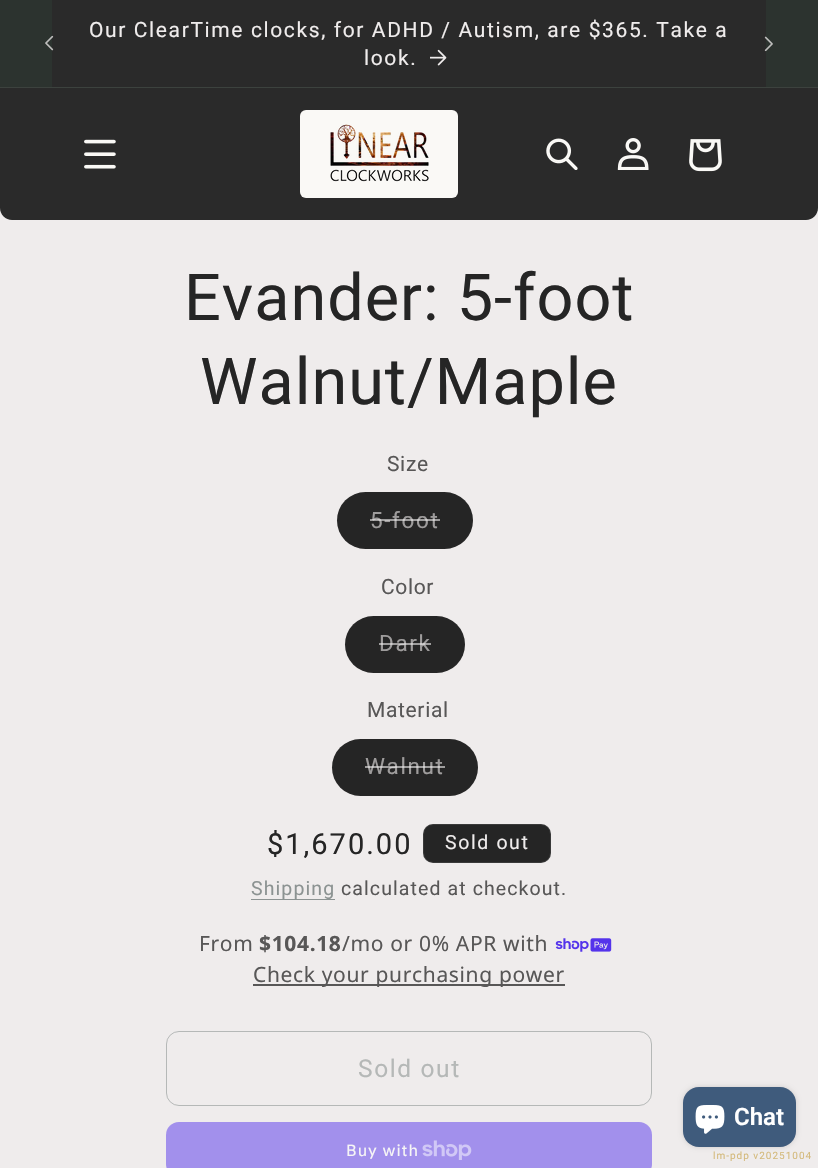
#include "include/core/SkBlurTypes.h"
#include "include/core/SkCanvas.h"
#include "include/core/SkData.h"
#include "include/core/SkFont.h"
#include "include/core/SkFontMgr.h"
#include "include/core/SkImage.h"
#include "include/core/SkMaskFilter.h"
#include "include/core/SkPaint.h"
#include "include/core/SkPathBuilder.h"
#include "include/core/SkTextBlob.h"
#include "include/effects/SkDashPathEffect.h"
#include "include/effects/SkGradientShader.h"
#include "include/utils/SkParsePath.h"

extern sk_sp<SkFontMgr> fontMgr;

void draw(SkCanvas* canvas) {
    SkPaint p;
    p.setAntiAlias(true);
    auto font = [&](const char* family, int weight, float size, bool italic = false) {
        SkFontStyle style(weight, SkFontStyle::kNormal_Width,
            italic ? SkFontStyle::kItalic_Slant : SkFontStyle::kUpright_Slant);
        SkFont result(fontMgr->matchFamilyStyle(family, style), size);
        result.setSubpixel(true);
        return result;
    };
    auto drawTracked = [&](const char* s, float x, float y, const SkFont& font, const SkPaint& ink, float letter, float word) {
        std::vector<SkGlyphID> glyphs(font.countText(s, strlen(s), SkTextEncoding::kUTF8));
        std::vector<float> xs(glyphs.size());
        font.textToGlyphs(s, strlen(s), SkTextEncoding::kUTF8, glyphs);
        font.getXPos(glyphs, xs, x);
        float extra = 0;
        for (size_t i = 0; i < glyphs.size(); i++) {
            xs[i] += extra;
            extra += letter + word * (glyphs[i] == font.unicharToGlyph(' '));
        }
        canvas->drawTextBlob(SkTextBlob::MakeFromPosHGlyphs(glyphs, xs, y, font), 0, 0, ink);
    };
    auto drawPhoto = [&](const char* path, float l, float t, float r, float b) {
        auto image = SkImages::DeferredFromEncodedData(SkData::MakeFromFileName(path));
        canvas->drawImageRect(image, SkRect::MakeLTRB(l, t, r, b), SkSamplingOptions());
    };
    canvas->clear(0xFFEFECEC);
    {
        const struct { float l, t, r, b; SkColor color; } items[] = {
            {0, 0, 818, 87, 0xFF2C332F},
            {0, 87, 818, 88, 0xFF3C423E},
            {52, 0, 766, 87, 0xFF2A2A2A},
        };
        for (auto [l, t, r, b, color] : items) {
            p.setColor(color);
            canvas->drawRect(SkRect::MakeLTRB(l, t, r, b), p);
        }
    }
    drawPhoto("media/1.png", 45, 35, 54, 51);
    auto font1 = font("Roboto", 400, 21);
    p.setColor(0xFFEFECEC);
    drawTracked("Our ClearTime clocks, for ADHD / Autism, are $365. Take a", 89, 37, font1, p, 1.62f, 0);
    drawTracked("look.", 364, 65, font1, p, 1.62f, 0);
    drawPhoto("media/2.png", 430, 49, 447, 66);
    drawPhoto("media/3.png", 764, 36, 773, 52);
    p.setColor(0xFF2A2A2A);
    canvas->drawPath(SkPathBuilder().moveTo(0, 88).lineTo(818, 88).lineTo(818, 208).cubicTo(818, 214.5f, 812.5f, 220, 806, 220).lineTo(12, 220).cubicTo(5.5f, 220, 0, 214.5f, 0, 208).close().detach(), p);
    drawPhoto("media/4.png", 84, 139, 116, 169);
    p.setColor(0xFFFAF9F6);
    canvas->drawRoundRect(SkRect::MakeLTRB(300, 110, 458, 198), 6, 6, p);
    drawPhoto("media/5.png", 330, 124, 429, 182);
    drawPhoto("media/6.png", 546, 138, 578, 170);
    drawPhoto("media/7.png", 617, 138, 649, 170);
    drawPhoto("media/8.png", 689, 139, 722, 172);
    auto font2 = font("Roboto", 400, 64.75f);
    p.setColor(0xFF252525);
    drawTracked("Evander: 5-foot", 184, 320, font2, p, 1, 0);
    drawTracked("Walnut/Maple", 200, 404, font2, p, 1, 0);
    p.setColor(0xFF585757);
    drawTracked("Size", 387, 471, font1, p, 0.65f, 0);
    p.setColor(0xFF252525);
    canvas->drawRoundRect(SkRect::MakeLTRB(337, 492, 473, 549), 28.5f, 28.5f, p);
    p.setStyle(SkPaint::kStroke_Style);
    p.setStrokeWidth(1);
    p.setColor(0x1A252525);
    canvas->drawRoundRect(SkRect::MakeLTRB(337.5f, 492.5f, 472.5f, 548.5f), 28, 28, p);
    auto font3 = font("Roboto", 400, 22.5f);
    p.setStyle(SkPaint::kFill_Style);
    p.setColor(0xFF9E9C9C);
    drawTracked("5-foot", 370, 528, font3, p, 1.62f, 0);
    p.setColor(0x99EFECEC);
    canvas->drawRect(SkRect::MakeLTRB(370, 519, 440, 521), p);
    p.setColor(0xFF585757);
    drawTracked("Color", 381, 594, font1, p, 0.65f, 0);
    p.setColor(0xFF252525);
    canvas->drawRoundRect(SkRect::MakeLTRB(345, 616, 465, 673), 28.5f, 28.5f, p);
    p.setStyle(SkPaint::kStroke_Style);
    p.setColor(0x1A252525);
    canvas->drawRoundRect(SkRect::MakeLTRB(345.5f, 616.5f, 464.5f, 672.5f), 28, 28, p);
    p.setStyle(SkPaint::kFill_Style);
    p.setColor(0xFF9E9C9C);
    drawTracked("Dark", 379, 651, font3, p, 1.62f, 0);
    p.setColor(0x99EFECEC);
    canvas->drawRect(SkRect::MakeLTRB(379, 643, 431, 645), p);
    p.setColor(0xFF585757);
    drawTracked("Material", 367, 717, font1, p, 0.65f, 0);
    p.setColor(0xFF252525);
    canvas->drawRoundRect(SkRect::MakeLTRB(332, 739, 478, 796), 28.5f, 28.5f, p);
    p.setStyle(SkPaint::kStroke_Style);
    p.setColor(0x1A252525);
    canvas->drawRoundRect(SkRect::MakeLTRB(332.5f, 739.5f, 477.5f, 795.5f), 28, 28, p);
    p.setStyle(SkPaint::kFill_Style);
    p.setColor(0xFF9E9C9C);
    drawTracked("Walnut", 365, 774, font3, p, 1.62f, 0);
    p.setColor(0x99EFECEC);
    canvas->drawRect(SkRect::MakeLTRB(365, 766, 445, 768), p);
    auto font4 = font("Roboto", 400, 29);
    p.setColor(0xFF252525);
    drawTracked("$1,670.00", 267, 854, font4, p, 2, 0);
    canvas->drawRoundRect(SkRect::MakeLTRB(423, 824, 551, 863), 10, 10, p);
    p.setStyle(SkPaint::kStroke_Style);
    p.setColor(0x1AEFECEC);
    canvas->drawRoundRect(SkRect::MakeLTRB(423.5f, 824.5f, 550.5f, 862.5f), 9.5f, 9.5f, p);
    auto font5 = font("Roboto", 400, 19.5f);
    p.setStyle(SkPaint::kFill_Style);
    p.setColor(0xFFEFECEC);
    drawTracked("Sold out", 445, 849, font5, p, 1.62f, 0);
    p.setColor(0xFF8C9392);
    canvas->drawRect(SkRect::MakeLTRB(251, 899, 335, 900), p);
    drawTracked("Shipping", 251, 895, font5, p, 1.1f, 0);
    p.setColor(0xFF585757);
    drawTracked("calculated at checkout.", 341, 895, font5, p, 1.1f, 0);
    auto font6 = font("Noto Sans", 400, 21);
    drawTracked("From", 199, 951, font6, p, 0.65f, 0);
    auto font7 = font("Noto Sans", 700, 21);
    drawTracked("$104.18", 259, 951, font7, p, 0.65f, 0);
    drawTracked("/mo or 0% APR with", 342, 951, font6, p, 0.65f, 0);
    drawPhoto("media/9.png", 555, 938, 612, 952);
    canvas->drawRect(SkRect::MakeLTRB(253, 984, 565, 986), p);
    drawTracked("Check your purchasing power", 253, 982, font6, p, 0.65f, 0);
    p.setStyle(SkPaint::kStroke_Style);
    p.setColor(0xFFB5B8B7);
    canvas->drawRoundRect(SkRect::MakeLTRB(166.5f, 1031.5f, 651.5f, 1105.5f), 12.5f, 12.5f, p);
    auto font8 = font("Roboto", 400, 24.5f);
    p.setStyle(SkPaint::kFill_Style);
    drawTracked("Sold out", 358, 1077, font8, p, 1.62f, 0);
    p.setColor(0xFFA290EC);
    canvas->drawRoundRect(SkRect::MakeLTRB(166, 1122, 652, 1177), 13, 13, p);
    auto font9 = font("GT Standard", 400, 16);
    p.setColor(0xFFF7F6F6);
    drawTracked("Buy with", 346, 1156, font9, p, 1, 0);
    drawPhoto("media/10.png", 422, 1140, 472, 1160);
    p.setColor(0x26000000);
    p.setMaskFilter(SkMaskFilter::MakeBlur(kNormal_SkBlurStyle, 2.5f));
    canvas->drawRoundRect(SkRect::MakeLTRB(683, 1087, 796, 1147), 16, 16, p);
    p.setMaskFilter(nullptr);
    p.setColor(0xFF3F5B7C);
    canvas->drawRoundRect(SkRect::MakeLTRB(683, 1087, 796, 1147), 16, 16, p);
    drawPhoto("media/11.png", 695, 1105, 725, 1134);
    auto font10 = font("Roboto", 600, 24);
    p.setColor(0xFFFFFFFF);
    canvas->drawString("Chat", 734, 1125, font10, p);
    auto font11 = font("Roboto", 400, 10);
    p.setColor(0xFFD4BA7C);
    drawTracked("lm-pdp v20251004", 713, 1159, font11, p, 1, 0);
}
